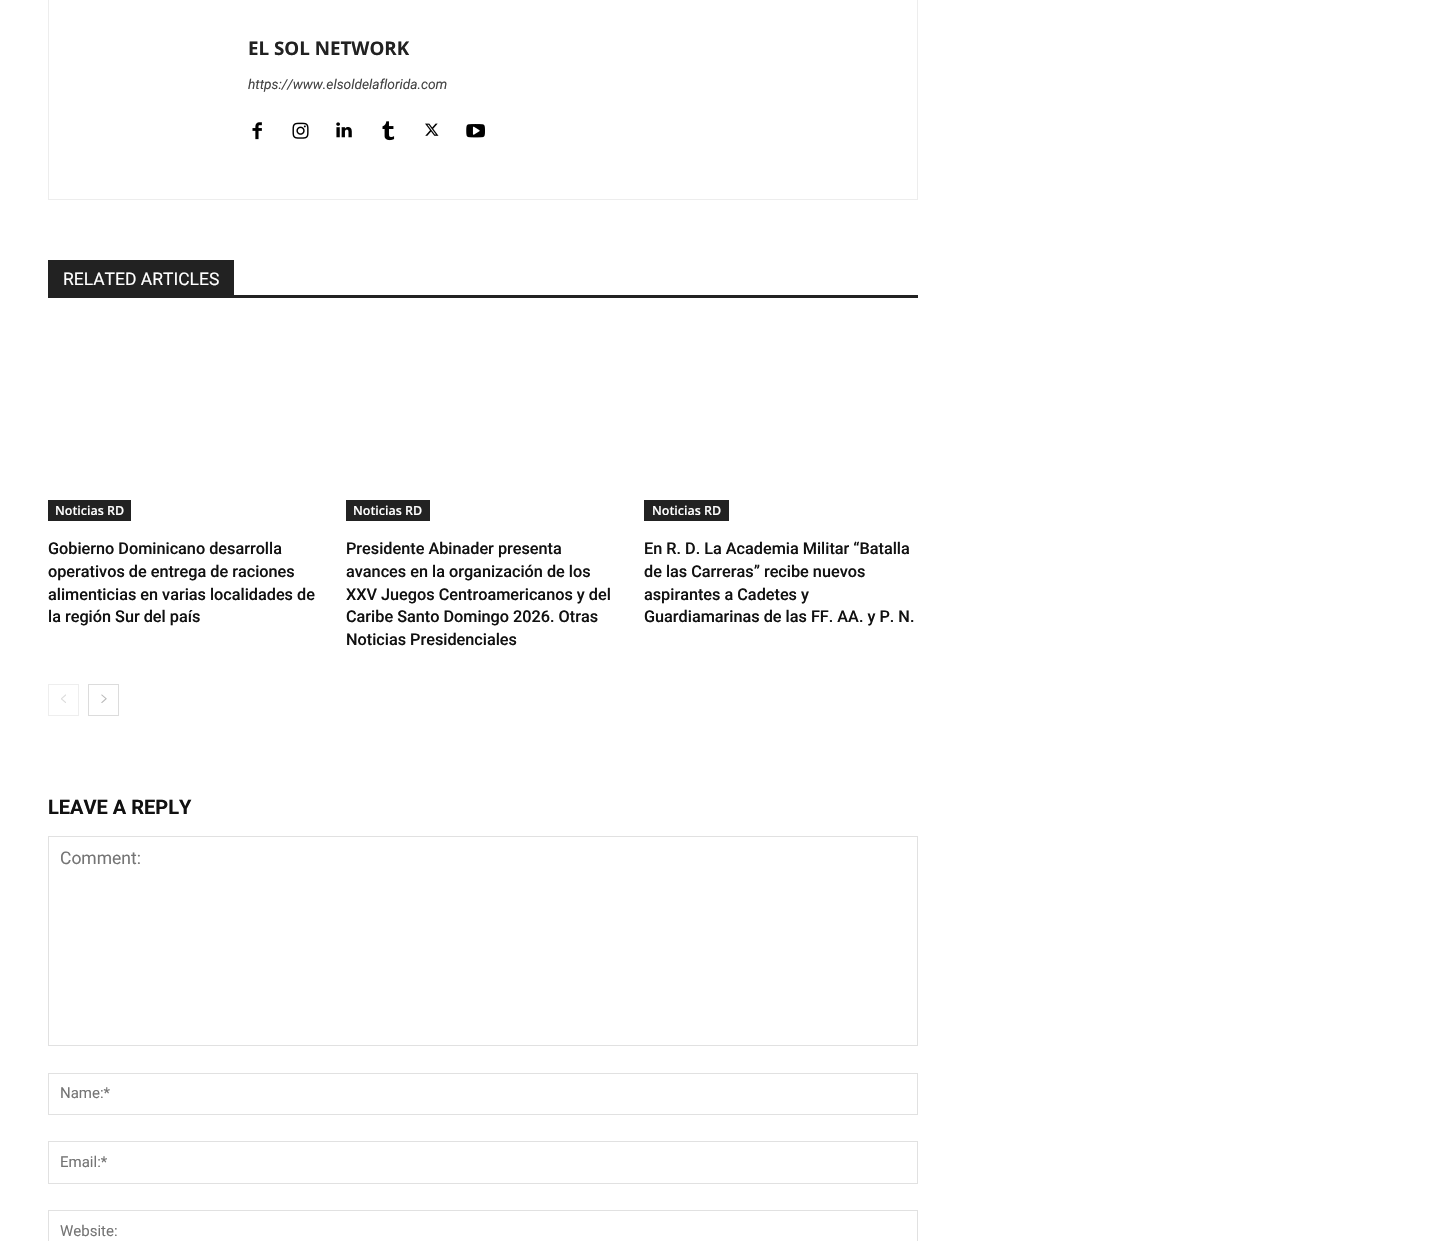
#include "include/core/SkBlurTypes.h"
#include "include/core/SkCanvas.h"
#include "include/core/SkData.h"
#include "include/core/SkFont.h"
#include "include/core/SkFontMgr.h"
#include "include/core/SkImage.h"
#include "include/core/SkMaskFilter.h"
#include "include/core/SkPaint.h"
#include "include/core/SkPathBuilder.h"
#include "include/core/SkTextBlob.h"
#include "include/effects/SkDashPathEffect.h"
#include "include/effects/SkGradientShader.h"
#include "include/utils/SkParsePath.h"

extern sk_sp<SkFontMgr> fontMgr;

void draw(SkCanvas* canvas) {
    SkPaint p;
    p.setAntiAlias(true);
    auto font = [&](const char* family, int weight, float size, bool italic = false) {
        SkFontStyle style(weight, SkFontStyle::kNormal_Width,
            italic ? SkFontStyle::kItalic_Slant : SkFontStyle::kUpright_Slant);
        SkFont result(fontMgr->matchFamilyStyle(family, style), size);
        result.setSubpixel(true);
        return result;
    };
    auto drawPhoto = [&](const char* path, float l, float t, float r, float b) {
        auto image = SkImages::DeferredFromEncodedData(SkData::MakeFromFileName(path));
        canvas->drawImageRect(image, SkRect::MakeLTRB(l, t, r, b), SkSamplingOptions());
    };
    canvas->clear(0xFFFFFFFF);
    p.setStyle(SkPaint::kStroke_Style);
    p.setStrokeWidth(1);
    p.setColor(0xFFEDEDED);
    canvas->drawRect(SkRect::MakeLTRB(48.5f, -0.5f, 917.5f, 199.5f), p);
    auto font1 = font("Open Sans", 700, 18.75f);
    p.setStyle(SkPaint::kFill_Style);
    p.setColor(0xFF222222);
    canvas->drawString("EL SOL NETWORK", 248, 55, font1, p);
    auto font2 = font("Roboto", 400, 13.75f, true);
    p.setColor(0xFF444444);
    canvas->drawString("https://www.elsoldelaflorida.com", 248, 89, font2, p);
    drawPhoto("media/1.png", 252, 122, 262, 140);
    drawPhoto("media/2.png", 292, 122, 309, 139);
    drawPhoto("media/3.png", 336, 122, 352, 138);
    drawPhoto("media/4.png", 382, 121, 395, 141);
    drawPhoto("media/5.png", 425, 123, 439, 136);
    drawPhoto("media/6.png", 466, 124, 485, 138);
    p.setColor(0xFF222222);
    canvas->drawRect(SkRect::MakeLTRB(48, 295, 918, 298), p);
    canvas->drawRect(SkRect::MakeLTRB(48, 260, 234, 295), p);
    auto font3 = font("Roboto", 400, 17.5f);
    p.setColor(0xFFFFFFFF);
    canvas->drawString("RELATED ARTICLES", 63, 285, font3, p);
    p.setColor(0xFF222222);
    canvas->drawRect(SkRect::MakeLTRB(48, 500, 131, 521), p);
    auto font4 = font("Open Sans", 600, 12.5f);
    p.setColor(0xFFFFFFFF);
    canvas->drawString("Noticias RD", 55, 515, font4, p);
    auto font5 = font("Roboto", 500, 16.25f);
    p.setColor(0xFF111111);
    {
        const struct { const char* s; float x, y; } items[] = {
            {"Gobierno Dominicano desarrolla", 48, 554},
            {"operativos de entrega de raciones", 48, 577},
            {"alimenticias en varias localidades de", 48, 600},
            {"la región Sur del país", 48, 622},
        };
        for (auto [s, x, y] : items) {
            canvas->drawString(s, x, y, font5, p);
        }
    }
    p.setColor(0xFF222222);
    canvas->drawRect(SkRect::MakeLTRB(346, 500, 430, 521), p);
    p.setColor(0xFFFFFFFF);
    canvas->drawString("Noticias RD", 353, 515, font4, p);
    p.setColor(0xFF111111);
    {
        const struct { const char* s; float x, y; } items[] = {
            {"Presidente Abinader presenta", 346, 554},
            {"avances en la organización de los", 346, 577},
            {"XXV Juegos Centroamericanos y del", 346, 600},
            {"Caribe Santo Domingo 2026. Otras", 346, 622},
            {"Noticias Presidenciales", 346, 645},
        };
        for (auto [s, x, y] : items) {
            canvas->drawString(s, x, y, font5, p);
        }
    }
    p.setColor(0xFF222222);
    canvas->drawRect(SkRect::MakeLTRB(644, 500, 729, 521), p);
    p.setColor(0xFFFFFFFF);
    canvas->drawString("Noticias RD", 652, 515, font4, p);
    p.setColor(0xFF111111);
    {
        const struct { const char* s; float x, y; } items[] = {
            {"En R. D. La Academia Militar “Batalla", 644, 554},
            {"de las Carreras” recibe nuevos", 644, 577},
            {"aspirantes a Cadetes y", 644, 600},
            {"Guardiamarinas de las FF. AA. y P. N.", 644, 622},
        };
        for (auto [s, x, y] : items) {
            canvas->drawString(s, x, y, font5, p);
        }
    }
    p.setStyle(SkPaint::kStroke_Style);
    p.setColor(0xFFEEEEEE);
    canvas->drawRect(SkRect::MakeLTRB(48.5f, 684.5f, 78.5f, 715.5f), p);
    drawPhoto("media/7.png", 61, 694, 66, 703);
    p.setColor(0xFFDCDCDC);
    canvas->drawRect(SkRect::MakeLTRB(88.5f, 684.5f, 118.5f, 715.5f), p);
    drawPhoto("media/8.png", 101, 694, 107, 703);
    auto font6 = font("Roboto", 700, 20);
    p.setStyle(SkPaint::kFill_Style);
    p.setColor(0xFF111111);
    canvas->drawString("LEAVE A REPLY", 48, 814, font6, p);
    p.setStyle(SkPaint::kStroke_Style);
    p.setColor(0xFFE1E1E1);
    canvas->drawRect(SkRect::MakeLTRB(48.5f, 836.5f, 917.5f, 1045.5f), p);
    p.setStyle(SkPaint::kFill_Style);
    p.setColor(0xFF757575);
    canvas->drawString("Comment:", 60, 864, font3, p);
    p.setStyle(SkPaint::kStroke_Style);
    p.setColor(0xFFE1E1E1);
    canvas->drawRect(SkRect::MakeLTRB(48.5f, 1073.5f, 917.5f, 1114.5f), p);
    auto font7 = font("Roboto", 400, 15);
    p.setStyle(SkPaint::kFill_Style);
    p.setColor(0xFF757575);
    canvas->drawString("Name:*", 60, 1098, font7, p);
    p.setStyle(SkPaint::kStroke_Style);
    p.setColor(0xFFE1E1E1);
    canvas->drawRect(SkRect::MakeLTRB(48.5f, 1141.5f, 917.5f, 1183.5f), p);
    p.setStyle(SkPaint::kFill_Style);
    p.setColor(0xFF757575);
    canvas->drawString("Email:*", 60, 1167, font7, p);
    p.setStyle(SkPaint::kStroke_Style);
    p.setColor(0xFFE1E1E1);
    canvas->drawRect(SkRect::MakeLTRB(48.5f, 1210.5f, 917.5f, 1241.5f), p);
    p.setStyle(SkPaint::kFill_Style);
    p.setColor(0xFF757575);
    canvas->drawString("Website:", 60, 1236, font7, p);
}
